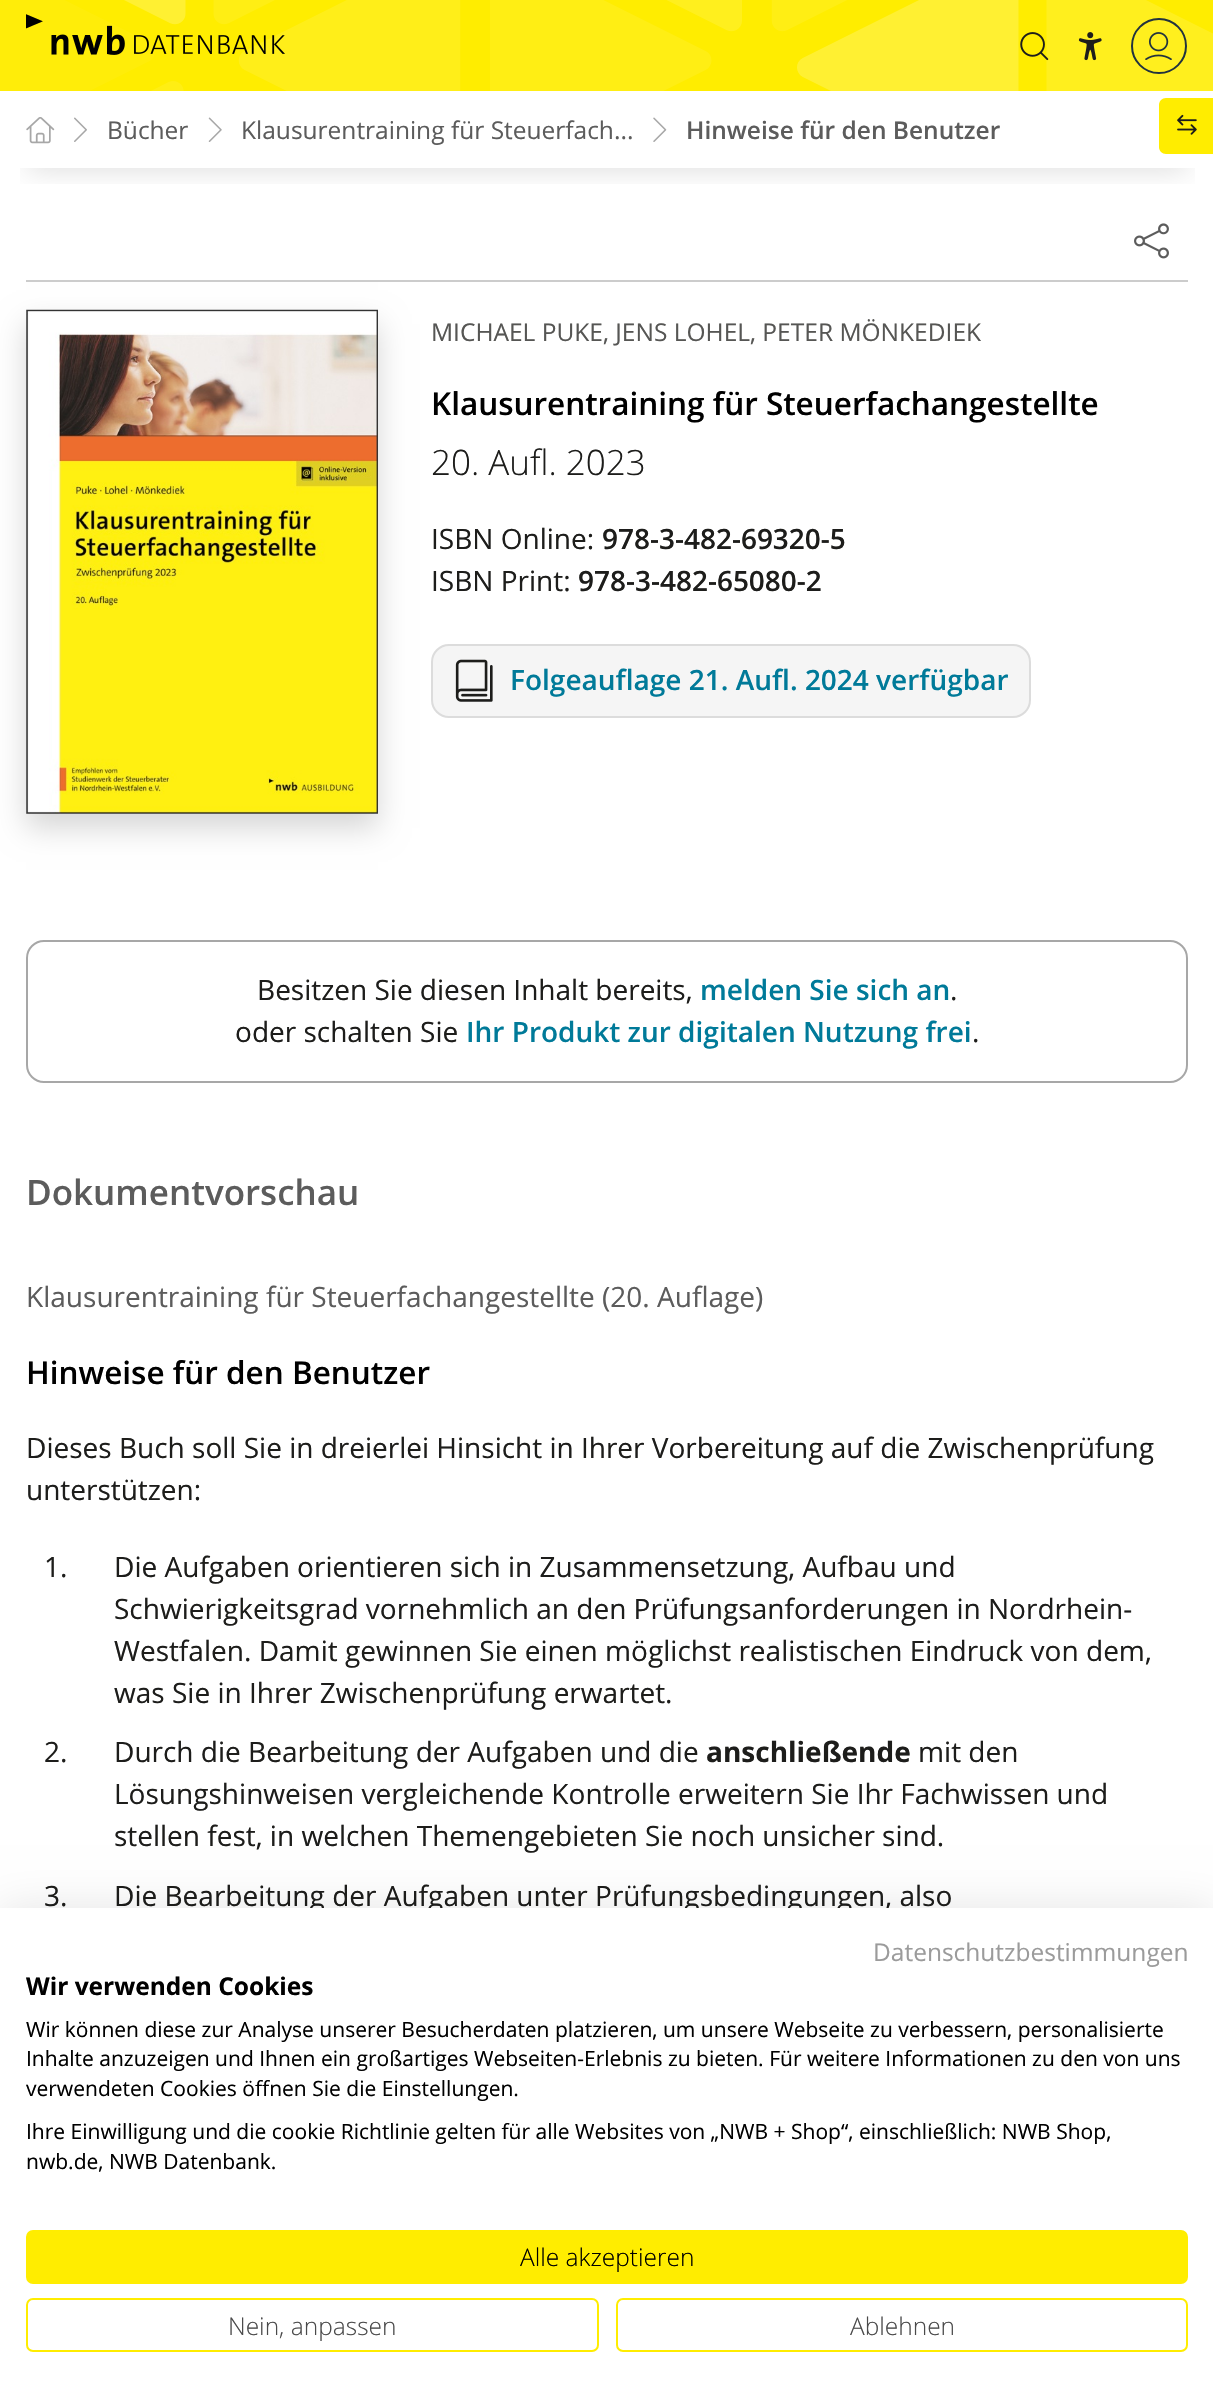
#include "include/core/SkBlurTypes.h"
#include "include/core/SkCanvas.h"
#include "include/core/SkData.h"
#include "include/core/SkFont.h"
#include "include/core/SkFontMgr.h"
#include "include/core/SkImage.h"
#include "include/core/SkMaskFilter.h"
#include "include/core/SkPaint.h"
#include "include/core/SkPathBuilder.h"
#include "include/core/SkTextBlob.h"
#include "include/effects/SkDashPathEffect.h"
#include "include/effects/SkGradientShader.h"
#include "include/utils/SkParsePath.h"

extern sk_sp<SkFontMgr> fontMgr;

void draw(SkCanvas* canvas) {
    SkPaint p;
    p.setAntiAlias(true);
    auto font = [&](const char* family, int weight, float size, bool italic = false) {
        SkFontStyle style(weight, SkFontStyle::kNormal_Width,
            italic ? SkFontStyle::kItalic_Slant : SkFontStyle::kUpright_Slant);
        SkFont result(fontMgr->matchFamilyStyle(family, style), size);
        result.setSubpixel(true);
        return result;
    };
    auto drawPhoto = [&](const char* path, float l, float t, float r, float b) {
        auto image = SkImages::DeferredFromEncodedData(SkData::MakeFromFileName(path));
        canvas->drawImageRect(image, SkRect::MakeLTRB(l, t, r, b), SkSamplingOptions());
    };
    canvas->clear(0xFFFFFFFF);
    p.setColor(0xFFFFED00);
    canvas->drawRect(SkRect::MakeLTRB(0, 0, 1213, 91), p);
    drawPhoto("media/1.png", 0, 0, 1213, 91);
    drawPhoto("media/2.png", 26, 14, 285, 55);
    drawPhoto("media/3.png", 1020, 32, 1049, 61);
    drawPhoto("media/4.png", 1078, 32, 1102, 61);
    p.setStyle(SkPaint::kStroke_Style);
    p.setStrokeWidth(2);
    p.setColor(0xFF21323E);
    canvas->drawCircle(1159, 46, 27, p);
    drawPhoto("media/5.png", 1145, 32, 1172, 60);
    canvas->save();
    canvas->clipRect(SkRect::MakeLTRB(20, 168, 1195, 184));
    p.setStyle(SkPaint::kFill_Style);
    p.setColor(0x29000000);
    p.setMaskFilter(SkMaskFilter::MakeBlur(kNormal_SkBlurStyle, 14));
    canvas->drawRect(SkRect::MakeLTRB(28, 147, 1187, 168), p);
    p.setMaskFilter(nullptr);
    canvas->restore();
    drawPhoto("media/6.png", 26, 117, 55, 144);
    drawPhoto("media/7.png", 74, 117, 87, 142);
    auto font1 = font("Open Sans", 400, 24.5f);
    p.setColor(0xFF5C5C5C);
    canvas->drawString("Bücher", 107, 139, font1, p);
    drawPhoto("media/8.png", 208, 117, 222, 142);
    canvas->drawString("Klausurentraining für Steuerfach...", 241, 139, font1, p);
    drawPhoto("media/9.png", 653, 117, 667, 142);
    auto font2 = font("Open Sans", 600, 24.5f);
    canvas->drawString("Hinweise für den Benutzer", 686, 139, font2, p);
    p.setColor(0xFFFFED00);
    canvas->drawPath(SkPathBuilder().moveTo(1166, 98).lineTo(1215, 98).lineTo(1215, 154).lineTo(1166, 154).cubicTo(1162, 154, 1159, 151, 1159, 147).lineTo(1159, 105).cubicTo(1159, 101, 1162, 98, 1166, 98).close().detach(), p);
    drawPhoto("media/10.png", 1177, 114, 1197, 135);
    p.setColor(0x29000000);
    p.setMaskFilter(SkMaskFilter::MakeBlur(kNormal_SkBlurStyle, 14));
    canvas->drawRect(SkRect::MakeLTRB(26, 324, 378, 828), p);
    p.setMaskFilter(nullptr);
    p.setColor(0xFFCCCCCC);
    canvas->drawRect(SkRect::MakeLTRB(26, 280, 1188, 282), p);
    drawPhoto("media/11.png", 1134, 223, 1169, 259);
    drawPhoto("media/12.png", 26, 309, 378, 814);
    p.setColor(0xFF565654);
    canvas->drawString("MICHAEL PUKE, JENS LOHEL, PETER MÖNKEDIEK", 431, 341, font1, p);
    auto font3 = font("Open Sans", 600, 31.5f);
    p.setColor(0xFF000000);
    canvas->drawString("Klausurentraining für Steuerfachangestellte", 431, 415, font3, p);
    auto font4 = font("Open Sans", 300, 35);
    p.setColor(0xFF1D1D1B);
    canvas->drawString("20. Aufl. 2023", 431, 475, font4, p);
    auto font5 = font("Open Sans", 400, 28);
    canvas->drawString("ISBN Online:", 431, 549, font5, p);
    auto font6 = font("Open Sans", 600, 28);
    canvas->drawString("978-3-482-69320-5", 602, 549, font6, p);
    canvas->drawString("ISBN Print:", 431, 591, font5, p);
    canvas->drawString("978-3-482-65080-2", 578, 591, font6, p);
    p.setColor(0xFFF5F5F5);
    canvas->drawRoundRect(SkRect::MakeLTRB(432, 645, 1030, 717), 17, 17, p);
    p.setStyle(SkPaint::kStroke_Style);
    p.setColor(0xFFDCDCDC);
    canvas->drawRoundRect(SkRect::MakeLTRB(432, 645, 1030, 717), 17, 17, p);
    drawPhoto("media/13.png", 455, 659, 493, 702);
    p.setStyle(SkPaint::kFill_Style);
    p.setColor(0xFF007A99);
    canvas->drawString("Folgeauflage 21. Aufl. 2024 verfügbar", 510, 690, font6, p);
    p.setStyle(SkPaint::kStroke_Style);
    p.setColor(0xFFA7A7A7);
    canvas->drawRoundRect(SkRect::MakeLTRB(27, 941, 1187, 1082), 17, 17, p);
    p.setStyle(SkPaint::kFill_Style);
    p.setColor(0xFF1D1D1B);
    canvas->drawString("Besitzen Sie diesen Inhalt bereits,", 257, 1000, font5, p);
    p.setColor(0xFF007A99);
    canvas->drawString("melden Sie sich an", 700, 1000, font6, p);
    p.setColor(0xFF1D1D1B);
    canvas->drawString(".", 950, 1000, font5, p);
    canvas->drawString("oder schalten Sie", 235, 1042, font5, p);
    p.setColor(0xFF007A99);
    canvas->drawString("Ihr Produkt zur digitalen Nutzung frei", 466, 1042, font6, p);
    p.setColor(0xFF1D1D1B);
    canvas->drawString(".", 972, 1042, font5, p);
    auto font7 = font("Open Sans", 600, 35);
    p.setColor(0xFF5C5C5C);
    canvas->drawString("Dokumentvorschau", 26, 1205, font7, p);
    canvas->drawString("Klausurentraining für Steuerfachangestellte (20. Auflage)", 26, 1307, font5, p);
    p.setColor(0xFF000000);
    canvas->drawString("Hinweise für den Benutzer", 26, 1384, font3, p);
    p.setColor(0xFF1D1D1B);
    {
        const struct { const char* s; float x, y; } items[] = {
            {"Dieses Buch soll Sie in dreierlei Hinsicht in Ihrer Vorbereitung auf die Zwischenprüfung", 26, 1458},
            {"unterstützen:", 26, 1500},
            {"1.", 44, 1577},
            {"Die Aufgaben orientieren sich in Zusammensetzung, Aufbau und", 114, 1577},
            {"Schwierigkeitsgrad vornehmlich an den Prüfungsanforderungen in Nordrhein-", 114, 1619},
            {"Westfalen. Damit gewinnen Sie einen möglichst realistischen Eindruck von dem,", 114, 1661},
            {"was Sie in Ihrer Zwischenprüfung erwartet.", 114, 1703},
            {"2.", 44, 1762},
            {"Durch die Bearbeitung der Aufgaben und die", 114, 1762},
        };
        for (auto [s, x, y] : items) {
            canvas->drawString(s, x, y, font5, p);
        }
    }
    auto font8 = font("Open Sans", 700, 28);
    canvas->drawString("anschließende", 706, 1762, font8, p);
    {
        const struct { const char* s; float x, y; } items[] = {
            {"mit den", 918, 1762},
            {"Lösungshinweisen vergleichende Kontrolle erweitern Sie Ihr Fachwissen und", 114, 1804},
            {"stellen fest, in welchen Themengebieten Sie noch unsicher sind.", 114, 1846},
            {"3.", 44, 1906},
            {"Die Bearbeitung der Aufgaben unter Prüfungsbedingungen, also", 114, 1906},
        };
        for (auto [s, x, y] : items) {
            canvas->drawString(s, x, y, font5, p);
        }
    }
    p.setColor(0x1A000000);
    p.setMaskFilter(SkMaskFilter::MakeBlur(kNormal_SkBlurStyle, 21));
    canvas->drawRect(SkRect::MakeLTRB(0, 1908, 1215, 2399), p);
    p.setMaskFilter(nullptr);
    p.setColor(0xFFFFFFFF);
    canvas->drawRect(SkRect::MakeLTRB(0, 1908, 1213, 2398), p);
    p.setColor(0xFF9B9B9B);
    canvas->drawString("Datenschutzbestimmungen", 873, 1961, font1, p);
    auto font9 = font("Open Sans", 700, 24.5f);
    p.setColor(0xFF000000);
    canvas->drawString("Wir verwenden Cookies", 26, 1995, font9, p);
    auto font10 = font("Open Sans", 400, 21);
    {
        const struct { const char* s; float x, y; } items[] = {
            {"Wir können diese zur Analyse unserer Besucherdaten platzieren, um unsere Webseite zu verbessern, personalisierte", 26, 2037},
            {"Inhalte anzuzeigen und Ihnen ein großartiges Webseiten-Erlebnis zu bieten. Für weitere Informationen zu den von uns", 26, 2066},
            {"verwendeten Cookies öffnen Sie die Einstellungen.", 26, 2096},
            {"Ihre Einwilligung und die cookie Richtlinie gelten für alle Websites von „NWB + Shop“, einschließlich: NWB Shop,", 26, 2139},
            {"nwb.de, NWB Datenbank.", 26, 2169},
        };
        for (auto [s, x, y] : items) {
            canvas->drawString(s, x, y, font10, p);
        }
    }
    p.setColor(0xFFFFED00);
    canvas->drawRoundRect(SkRect::MakeLTRB(27, 2231, 1187, 2283), 6, 6, p);
    p.setStyle(SkPaint::kStroke_Style);
    canvas->drawRoundRect(SkRect::MakeLTRB(27, 2231, 1187, 2283), 6, 6, p);
    auto font11 = font("Open Sans", 300, 24.5f);
    p.setStyle(SkPaint::kFill_Style);
    p.setColor(0xFF000000);
    canvas->drawString("Alle akzeptieren", 520, 2266, font11, p);
    p.setStyle(SkPaint::kStroke_Style);
    p.setColor(0xFFFFED00);
    canvas->drawRoundRect(SkRect::MakeLTRB(27, 2299, 598, 2351), 6, 6, p);
    p.setStyle(SkPaint::kFill_Style);
    p.setColor(0xFF4A4A4A);
    canvas->drawString("Nein, anpassen", 228, 2335, font11, p);
    p.setStyle(SkPaint::kStroke_Style);
    p.setColor(0xFFFFED00);
    canvas->drawRoundRect(SkRect::MakeLTRB(617, 2299, 1187, 2351), 6, 6, p);
    p.setStyle(SkPaint::kFill_Style);
    p.setColor(0xFF4A4A4A);
    canvas->drawString("Ablehnen", 850, 2335, font11, p);
}
